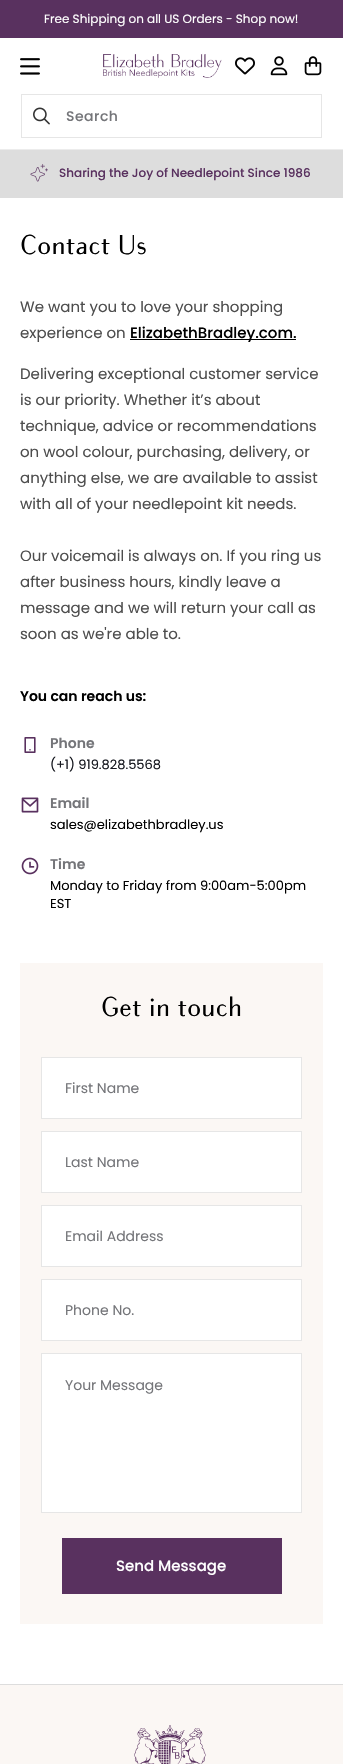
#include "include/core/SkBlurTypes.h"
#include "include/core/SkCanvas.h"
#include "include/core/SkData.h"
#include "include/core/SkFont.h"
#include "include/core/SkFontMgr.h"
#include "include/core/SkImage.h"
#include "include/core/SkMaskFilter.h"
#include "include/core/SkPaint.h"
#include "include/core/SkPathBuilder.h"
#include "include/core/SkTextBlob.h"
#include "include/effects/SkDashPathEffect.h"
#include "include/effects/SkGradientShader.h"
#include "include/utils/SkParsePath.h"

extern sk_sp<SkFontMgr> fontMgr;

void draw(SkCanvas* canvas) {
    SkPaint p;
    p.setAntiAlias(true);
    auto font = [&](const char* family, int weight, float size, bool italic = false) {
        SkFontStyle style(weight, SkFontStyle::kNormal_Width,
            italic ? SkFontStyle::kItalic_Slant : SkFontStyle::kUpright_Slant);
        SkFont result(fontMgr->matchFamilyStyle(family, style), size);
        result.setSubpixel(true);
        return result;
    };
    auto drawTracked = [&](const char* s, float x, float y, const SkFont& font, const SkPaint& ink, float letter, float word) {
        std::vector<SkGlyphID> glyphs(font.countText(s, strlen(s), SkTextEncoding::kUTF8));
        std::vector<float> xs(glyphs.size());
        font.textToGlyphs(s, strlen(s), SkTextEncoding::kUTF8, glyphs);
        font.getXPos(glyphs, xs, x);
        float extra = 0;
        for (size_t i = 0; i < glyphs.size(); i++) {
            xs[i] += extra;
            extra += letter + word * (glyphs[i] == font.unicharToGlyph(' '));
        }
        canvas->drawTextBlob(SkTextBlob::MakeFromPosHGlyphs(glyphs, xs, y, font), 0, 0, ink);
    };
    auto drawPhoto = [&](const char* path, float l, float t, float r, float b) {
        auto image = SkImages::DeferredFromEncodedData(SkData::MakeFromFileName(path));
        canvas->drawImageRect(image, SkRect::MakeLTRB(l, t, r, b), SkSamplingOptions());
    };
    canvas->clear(0xFFFFFFFF);
    p.setColor(0xFF59315F);
    canvas->drawRect(SkRect::MakeLTRB(0, 0, 343, 38), p);
    auto font1 = font("Poppins", 400, 12);
    p.setColor(0xFFFFFFFF);
    canvas->drawString("Free Shipping on all US Orders - Shop now!", 44, 23, font1, p);
    p.setColor(0xFFECECEC);
    canvas->drawRect(SkRect::MakeLTRB(0, 149, 343, 150), p);
    drawPhoto("media/1.png", 20, 58, 40, 75);
    drawPhoto("media/2.png", 103, 53, 222, 78);
    drawPhoto("media/3.png", 235, 57, 255, 75);
    drawPhoto("media/4.png", 270, 56, 288, 76);
    drawPhoto("media/5.png", 304, 56, 322, 76);
    drawPhoto("media/6.png", 33, 107, 50, 125);
    p.setStyle(SkPaint::kStroke_Style);
    p.setStrokeWidth(1);
    p.setColor(0xFFE6E6E6);
    canvas->drawRect(SkRect::MakeLTRB(21.5f, 94.5f, 321.5f, 137.5f), p);
    auto font2 = font("Poppins", 500, 14);
    p.setStyle(SkPaint::kFill_Style);
    p.setColor(0xFF747579);
    drawTracked("Search", 66, 121, font2, p, 0.5f, 0);
    p.setColor(0xFFDDDDDD);
    canvas->drawRect(SkRect::MakeLTRB(0, 150, 343, 198), p);
    drawPhoto("media/7.png", 30, 164, 48, 182);
    auto font3 = font("Poppins", 500, 12);
    p.setColor(0xFF59315F);
    canvas->drawString("Sharing the Joy of Needlepoint Since 1986", 59, 177, font3, p);
    auto font4 = font("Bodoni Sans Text", 400, 27);
    p.setColor(0xFF000000);
    drawTracked("Contact Us", 20, 254, font4, p, 0.6f, 0);
    auto font5 = font("Poppins", 400, 15);
    p.setColor(0xFF4D4D4D);
    canvas->drawString("We want you to love your shopping", 20, 312, font5, p);
    canvas->drawString("experience on", 20, 338, font5, p);
    p.setColor(0xFF000000);
    canvas->drawRect(SkRect::MakeLTRB(130, 339, 296, 340), p);
    auto font6 = font("Poppins", 500, 15);
    canvas->drawString("ElizabethBradley.com.", 130, 338, font6, p);
    p.setColor(0xFF4D4D4D);
    {
        const struct { const char* s; float x, y; } items[] = {
            {"Delivering exceptional customer service", 20, 379},
            {"is our priority. Whether it’s about", 20, 405},
            {"technique, advice or recommendations", 20, 431},
            {"on wool colour, purchasing, delivery, or", 20, 457},
            {"anything else, we are available to assist", 20, 483},
            {"with all of your needlepoint kit needs.", 20, 509},
            {"Our voicemail is always on. If you ring us", 20, 561},
            {"after business hours, kindly leave a", 20, 587},
            {"message and we will return your call as", 20, 613},
            {"soon as we're able to.", 20, 639},
        };
        for (auto [s, x, y] : items) {
            canvas->drawString(s, x, y, font5, p);
        }
    }
    auto font7 = font("Poppins", 600, 14);
    p.setColor(0xFF000000);
    canvas->drawString("You can reach us:", 20, 701, font7, p);
    drawPhoto("media/8.png", 24, 737, 36, 753);
    p.setColor(0xFF747579);
    canvas->drawString("Phone", 50, 748, font7, p);
    auto font8 = font("Poppins", 400, 13);
    p.setColor(0xFF171920);
    canvas->drawString("(+1) 919.828.5568", 50, 769, font8, p);
    drawPhoto("media/9.png", 21, 797, 39, 813);
    p.setColor(0xFF747579);
    canvas->drawString("Email", 50, 808, font7, p);
    p.setColor(0xFF000000);
    canvas->drawString("sales@elizabethbradley.us", 50, 829, font8, p);
    drawPhoto("media/10.png", 21, 857, 39, 875);
    p.setColor(0xFF747579);
    canvas->drawString("Time", 50, 869, font7, p);
    p.setColor(0xFF000000);
    canvas->drawString("Monday to Friday from 9:00am-5:00pm", 50, 890, font8, p);
    canvas->drawString("EST", 50, 908, font8, p);
    p.setColor(0xFFFBF7F4);
    canvas->drawRect(SkRect::MakeLTRB(20, 963, 323, 1624), p);
    p.setColor(0xFF000000);
    drawTracked("Get in touch", 101, 1016, font4, p, 0.6f, 0);
    p.setColor(0xFFFFFFFF);
    canvas->drawRect(SkRect::MakeLTRB(42, 1058, 301, 1118), p);
    p.setStyle(SkPaint::kStroke_Style);
    p.setColor(0xFFE6E6E6);
    canvas->drawRect(SkRect::MakeLTRB(41.5f, 1057.5f, 301.5f, 1118.5f), p);
    auto font9 = font("Poppins", 400, 14);
    p.setStyle(SkPaint::kFill_Style);
    p.setColor(0xFF747579);
    canvas->drawString("First Name", 65, 1093, font9, p);
    p.setColor(0xFFFFFFFF);
    canvas->drawRect(SkRect::MakeLTRB(42, 1132, 301, 1192), p);
    p.setStyle(SkPaint::kStroke_Style);
    p.setColor(0xFFE6E6E6);
    canvas->drawRect(SkRect::MakeLTRB(41.5f, 1131.5f, 301.5f, 1192.5f), p);
    p.setStyle(SkPaint::kFill_Style);
    p.setColor(0xFF747579);
    canvas->drawString("Last Name", 65, 1167, font9, p);
    p.setColor(0xFFFFFFFF);
    canvas->drawRect(SkRect::MakeLTRB(42, 1206, 301, 1266), p);
    p.setStyle(SkPaint::kStroke_Style);
    p.setColor(0xFFE6E6E6);
    canvas->drawRect(SkRect::MakeLTRB(41.5f, 1205.5f, 301.5f, 1266.5f), p);
    p.setStyle(SkPaint::kFill_Style);
    p.setColor(0xFF747579);
    canvas->drawString("Email Address", 65, 1241, font9, p);
    p.setColor(0xFFFFFFFF);
    canvas->drawRect(SkRect::MakeLTRB(42, 1280, 301, 1340), p);
    p.setStyle(SkPaint::kStroke_Style);
    p.setColor(0xFFE6E6E6);
    canvas->drawRect(SkRect::MakeLTRB(41.5f, 1279.5f, 301.5f, 1340.5f), p);
    p.setStyle(SkPaint::kFill_Style);
    p.setColor(0xFF747579);
    canvas->drawString("Phone No.", 65, 1315, font9, p);
    p.setColor(0xFFFFFFFF);
    canvas->drawRect(SkRect::MakeLTRB(42, 1354, 301, 1512), p);
    p.setStyle(SkPaint::kStroke_Style);
    p.setColor(0xFFE6E6E6);
    canvas->drawRect(SkRect::MakeLTRB(41.5f, 1353.5f, 301.5f, 1512.5f), p);
    p.setStyle(SkPaint::kFill_Style);
    p.setColor(0xFF747579);
    canvas->drawString("Your Message", 65, 1390, font9, p);
    p.setColor(0xFF59315F);
    canvas->drawRect(SkRect::MakeLTRB(62, 1538, 282, 1594), p);
    p.setColor(0xFFFFFFFF);
    canvas->drawString("Send Message", 116, 1571, font6, p);
    p.setColor(0xFFFBF7F4);
    canvas->drawRect(SkRect::MakeLTRB(0, 1685, 343, 1764), p);
    p.setColor(0xFFDDDDDD);
    canvas->drawRect(SkRect::MakeLTRB(0, 1684, 343, 1685), p);
    drawPhoto("media/11.png", 134, 1725, 206, 1764);
}
